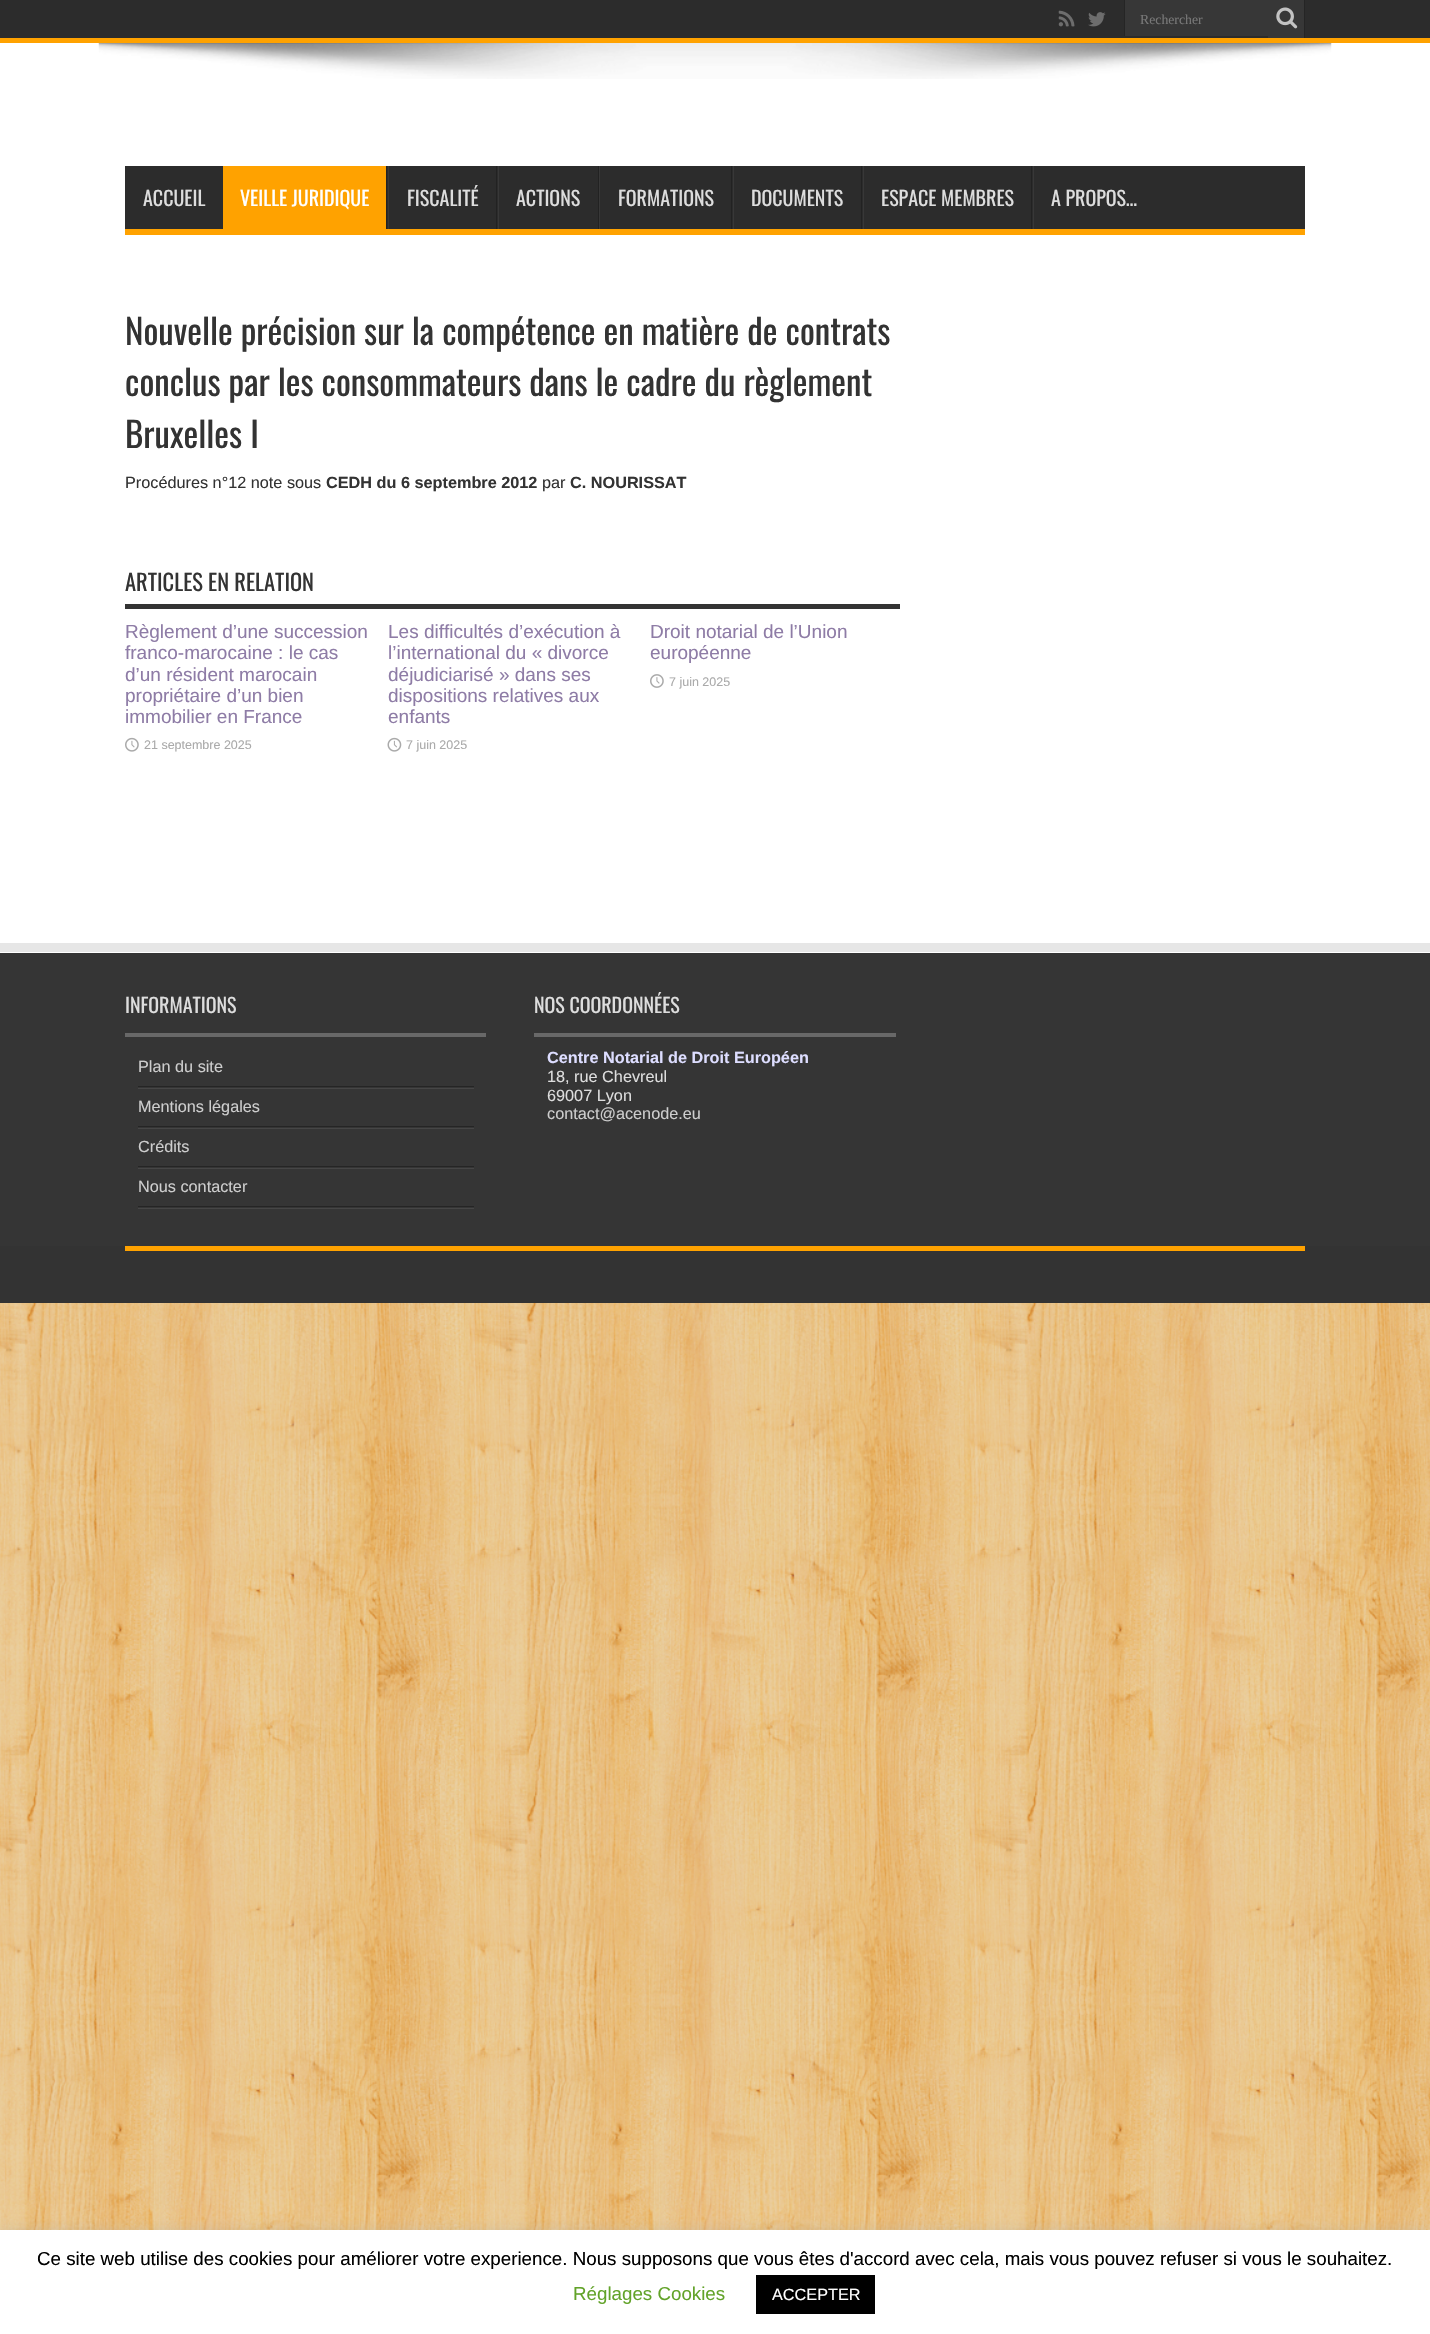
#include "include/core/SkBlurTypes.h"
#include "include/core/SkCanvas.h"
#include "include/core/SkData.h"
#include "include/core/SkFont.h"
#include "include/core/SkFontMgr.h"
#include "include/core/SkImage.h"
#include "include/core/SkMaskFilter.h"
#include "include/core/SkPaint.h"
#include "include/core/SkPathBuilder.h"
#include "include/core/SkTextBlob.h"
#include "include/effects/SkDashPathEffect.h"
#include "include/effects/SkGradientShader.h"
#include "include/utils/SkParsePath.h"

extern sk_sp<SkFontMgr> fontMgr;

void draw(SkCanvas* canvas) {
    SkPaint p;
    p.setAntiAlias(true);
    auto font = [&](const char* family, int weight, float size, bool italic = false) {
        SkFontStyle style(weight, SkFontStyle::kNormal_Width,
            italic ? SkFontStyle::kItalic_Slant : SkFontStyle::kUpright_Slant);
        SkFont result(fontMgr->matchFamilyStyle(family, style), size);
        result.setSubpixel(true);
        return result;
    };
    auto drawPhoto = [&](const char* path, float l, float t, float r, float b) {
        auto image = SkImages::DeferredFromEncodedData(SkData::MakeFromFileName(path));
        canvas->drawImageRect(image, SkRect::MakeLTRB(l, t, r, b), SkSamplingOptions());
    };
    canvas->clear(0xFFFFFFFF);
    drawPhoto("media/1.png", 0, 1303, 1430, 2230);
    p.setColor(0xFF2C2C2C);
    canvas->drawRect(SkRect::MakeLTRB(0, 0, 1430, 38), p);
    p.setColor(0xFFFFA200);
    canvas->drawRect(SkRect::MakeLTRB(0, 38, 1430, 43), p);
    drawPhoto("media/2.png", 1058, 10, 1075, 27);
    drawPhoto("media/3.png", 1088, 12, 1106, 27);
    p.setColor(0xFF373737);
    canvas->drawRect(SkRect::MakeLTRB(1125, 0, 1268, 36), p);
    p.setColor(0xFF252525);
    canvas->drawRect(SkRect::MakeLTRB(1124, 0, 1125, 36), p);
    auto font1 = font("Liberation Serif", 400, 13.75f);
    p.setColor(0xFF787878);
    canvas->drawString("Rechercher", 1140, 24, font1, p);
    p.setColor(0xFF373737);
    canvas->drawRect(SkRect::MakeLTRB(1268, 0, 1304, 38), p);
    p.setColor(0xFF252525);
    canvas->drawRect(SkRect::MakeLTRB(1304, 0, 1305, 38), p);
    drawPhoto("media/4.png", 1276, 7, 1298, 29);
    drawPhoto("media/5.png", 98, 43, 1332, 79);
    p.setColor(0xFF2C2C2C);
    canvas->drawRect(SkRect::MakeLTRB(125, 166, 1305, 229), p);
    p.setColor(0xFFFFA200);
    canvas->drawRect(SkRect::MakeLTRB(125, 229, 1305, 235), p);
    auto font2 = font("Oswald", 400, 20);
    p.setColor(0xFFDDDDDD);
    canvas->drawString("ACCUEIL", 143, 206, font2, p);
    p.setColor(0xFFFFA200);
    canvas->drawRect(SkRect::MakeLTRB(223, 166, 386, 229), p);
    p.setColor(0xFFFFFFFF);
    canvas->drawString("VEILLE JURIDIQUE", 240, 206, font2, p);
    p.setColor(0xFF222222);
    canvas->drawRect(SkRect::MakeLTRB(386, 166, 387, 229), p);
    p.setColor(0xFF383838);
    canvas->drawRect(SkRect::MakeLTRB(388, 166, 389, 229), p);
    p.setColor(0xFFDDDDDD);
    canvas->drawString("FISCALITÉ", 407, 206, font2, p);
    p.setColor(0xFF222222);
    canvas->drawRect(SkRect::MakeLTRB(496, 166, 497, 229), p);
    p.setColor(0xFF383838);
    canvas->drawRect(SkRect::MakeLTRB(498, 166, 499, 229), p);
    p.setColor(0xFFDDDDDD);
    canvas->drawString("ACTIONS", 516, 206, font2, p);
    p.setColor(0xFF222222);
    canvas->drawRect(SkRect::MakeLTRB(598, 166, 599, 229), p);
    p.setColor(0xFF383838);
    canvas->drawRect(SkRect::MakeLTRB(599, 166, 600, 229), p);
    p.setColor(0xFFDDDDDD);
    canvas->drawString("FORMATIONS", 618, 206, font2, p);
    p.setColor(0xFF222222);
    canvas->drawRect(SkRect::MakeLTRB(731, 166, 732, 229), p);
    p.setColor(0xFF383838);
    canvas->drawRect(SkRect::MakeLTRB(733, 166, 734, 229), p);
    p.setColor(0xFFDDDDDD);
    canvas->drawString("DOCUMENTS", 751, 206, font2, p);
    p.setColor(0xFF222222);
    canvas->drawRect(SkRect::MakeLTRB(861, 166, 862, 229), p);
    p.setColor(0xFF383838);
    canvas->drawRect(SkRect::MakeLTRB(863, 166, 864, 229), p);
    p.setColor(0xFFDDDDDD);
    canvas->drawString("ESPACE MEMBRES", 881, 206, font2, p);
    p.setColor(0xFF222222);
    canvas->drawRect(SkRect::MakeLTRB(1031, 166, 1032, 229), p);
    p.setColor(0xFF383838);
    canvas->drawRect(SkRect::MakeLTRB(1033, 166, 1034, 229), p);
    p.setColor(0xFFDDDDDD);
    canvas->drawString("A PROPOS…", 1051, 206, font2, p);
    auto font3 = font("Oswald", 400, 35);
    p.setColor(0xFF333333);
    {
        const struct { const char* s; float x, y; } items[] = {
            {"Nouvelle précision sur la compétence en matière de contrats", 125, 345},
            {"conclus par les consommateurs dans le cadre du règlement", 125, 396},
            {"Bruxelles I", 125, 448},
        };
        for (auto [s, x, y] : items) {
            canvas->drawString(s, x, y, font3, p);
        }
    }
    auto font4 = font("Liberation Sans", 400, 16.25f);
    canvas->drawString("Procédures n°12 note sous", 125, 488, font4, p);
    auto font5 = font("Liberation Sans", 700, 16.25f);
    canvas->drawString("CEDH du 6 septembre 2012", 326, 488, font5, p);
    canvas->drawString("par", 542, 488, font4, p);
    canvas->drawString("C. NOURISSAT", 570, 488, font5, p);
    canvas->drawRect(SkRect::MakeLTRB(125, 604, 900, 609), p);
    auto font6 = font("Oswald", 400, 22.5f);
    canvas->drawString("ARTICLES EN RELATION", 125, 591, font6, p);
    auto font7 = font("Liberation Sans", 400, 19);
    p.setColor(0xFF8E7CA6);
    {
        const struct { const char* s; float x, y; } items[] = {
            {"Règlement d’une succession", 125, 638},
            {"franco-marocaine : le cas", 125, 659},
            {"d’un résident marocain", 125, 681},
            {"propriétaire d’un bien", 125, 702},
            {"immobilier en France", 125, 723},
        };
        for (auto [s, x, y] : items) {
            canvas->drawString(s, x, y, font7, p);
        }
    }
    drawPhoto("media/6.png", 125, 737, 139, 752);
    auto font8 = font("Liberation Sans", 400, 12.5f);
    p.setColor(0xFFAAAAAA);
    canvas->drawString("21 septembre 2025", 144, 749, font8, p);
    p.setColor(0xFF8E7CA6);
    {
        const struct { const char* s; float x, y; } items[] = {
            {"Les difficultés d’exécution à", 388, 638},
            {"l’international du « divorce", 388, 659},
            {"déjudiciarisé » dans ses", 388, 681},
            {"dispositions relatives aux", 388, 702},
            {"enfants", 388, 723},
        };
        for (auto [s, x, y] : items) {
            canvas->drawString(s, x, y, font7, p);
        }
    }
    drawPhoto("media/7.png", 387, 737, 402, 752);
    p.setColor(0xFFAAAAAA);
    canvas->drawString("7 juin 2025", 406, 749, font8, p);
    p.setColor(0xFF8E7CA6);
    canvas->drawString("Droit notarial de l’Union", 650, 638, font7, p);
    canvas->drawString("européenne", 650, 659, font7, p);
    drawPhoto("media/8.png", 650, 674, 664, 688);
    p.setColor(0xFFAAAAAA);
    canvas->drawString("7 juin 2025", 669, 686, font8, p);
    {
        const struct { float l, t, r, b; SkColor color; } items[] = {
            {0, 943, 1430, 952, 0xFFE6E6E6},
            {0, 953, 1430, 1246, 0xFF353535},
            {125, 1033, 486, 1037, 0xFF686868},
        };
        for (auto [l, t, r, b, color] : items) {
            p.setColor(color);
            canvas->drawRect(SkRect::MakeLTRB(l, t, r, b), p);
        }
    }
    p.setColor(0xFFDDDDDD);
    canvas->drawString("INFORMATIONS", 125, 1013, font2, p);
    p.setColor(0xFF464646);
    canvas->drawRect(SkRect::MakeLTRB(138, 1208, 474, 1209), p);
    p.setColor(0xFF252525);
    canvas->drawRect(SkRect::MakeLTRB(138, 1086, 474, 1087), p);
    p.setColor(0xFFCDCDCD);
    canvas->drawString("Plan du site", 138, 1072, font4, p);
    p.setColor(0xFF464646);
    canvas->drawRect(SkRect::MakeLTRB(138, 1088, 474, 1089), p);
    p.setColor(0xFF252525);
    canvas->drawRect(SkRect::MakeLTRB(138, 1126, 474, 1127), p);
    p.setColor(0xFFCDCDCD);
    canvas->drawString("Mentions légales", 138, 1112, font4, p);
    p.setColor(0xFF464646);
    canvas->drawRect(SkRect::MakeLTRB(138, 1128, 474, 1129), p);
    p.setColor(0xFF252525);
    canvas->drawRect(SkRect::MakeLTRB(138, 1166, 474, 1167), p);
    p.setColor(0xFFCDCDCD);
    canvas->drawString("Crédits", 138, 1152, font4, p);
    p.setColor(0xFF464646);
    canvas->drawRect(SkRect::MakeLTRB(138, 1168, 474, 1169), p);
    p.setColor(0xFF252525);
    canvas->drawRect(SkRect::MakeLTRB(138, 1206, 474, 1207), p);
    p.setColor(0xFFCDCDCD);
    canvas->drawString("Nous contacter", 138, 1192, font4, p);
    p.setColor(0xFF686868);
    canvas->drawRect(SkRect::MakeLTRB(534, 1033, 896, 1037), p);
    p.setColor(0xFFDDDDDD);
    canvas->drawString("NOS COORDONNÉES", 534, 1013, font2, p);
    p.setColor(0xFFDDDDFF);
    canvas->drawString("Centre Notarial de Droit Européen", 547, 1063, font5, p);
    p.setColor(0xFFDDDDDD);
    canvas->drawString("18, rue Chevreul", 547, 1082, font4, p);
    canvas->drawString("69007 Lyon", 547, 1101, font4, p);
    p.setColor(0xFFCDCDCD);
    canvas->drawString("contact@acenode.eu", 547, 1119, font4, p);
    p.setColor(0xFF333333);
    canvas->drawRect(SkRect::MakeLTRB(0, 1246, 1430, 1303), p);
    p.setColor(0xFFFFA200);
    canvas->drawRect(SkRect::MakeLTRB(125, 1246, 1305, 1251), p);
    p.setColor(0x4DACABAB);
    p.setMaskFilter(SkMaskFilter::MakeBlur(kNormal_SkBlurStyle, 6));
    canvas->drawRect(SkRect::MakeLTRB(0, 2229, 1430, 2334), p);
    p.setMaskFilter(nullptr);
    p.setColor(0xFFFFFFFF);
    canvas->drawRect(SkRect::MakeLTRB(0, 2230, 1430, 2334), p);
    auto font9 = font("Liberation Sans", 400, 18.75f);
    p.setColor(0xFF000000);
    canvas->drawString("Ce site web utilise des cookies pour améliorer votre experience. Nous supposons que vous êtes d'accord avec cela, mais vous pouvez refuser si vous le souhaitez.", 37, 2265, font9, p);
    p.setColor(0xFF62A329);
    canvas->drawString("Réglages Cookies", 573, 2300, font9, p);
    p.setColor(0xFF000000);
    canvas->drawRect(SkRect::MakeLTRB(756, 2275, 875, 2314), p);
    p.setColor(0xFFFFFFFF);
    canvas->drawString("ACCEPTER", 772, 2300, font4, p);
}
